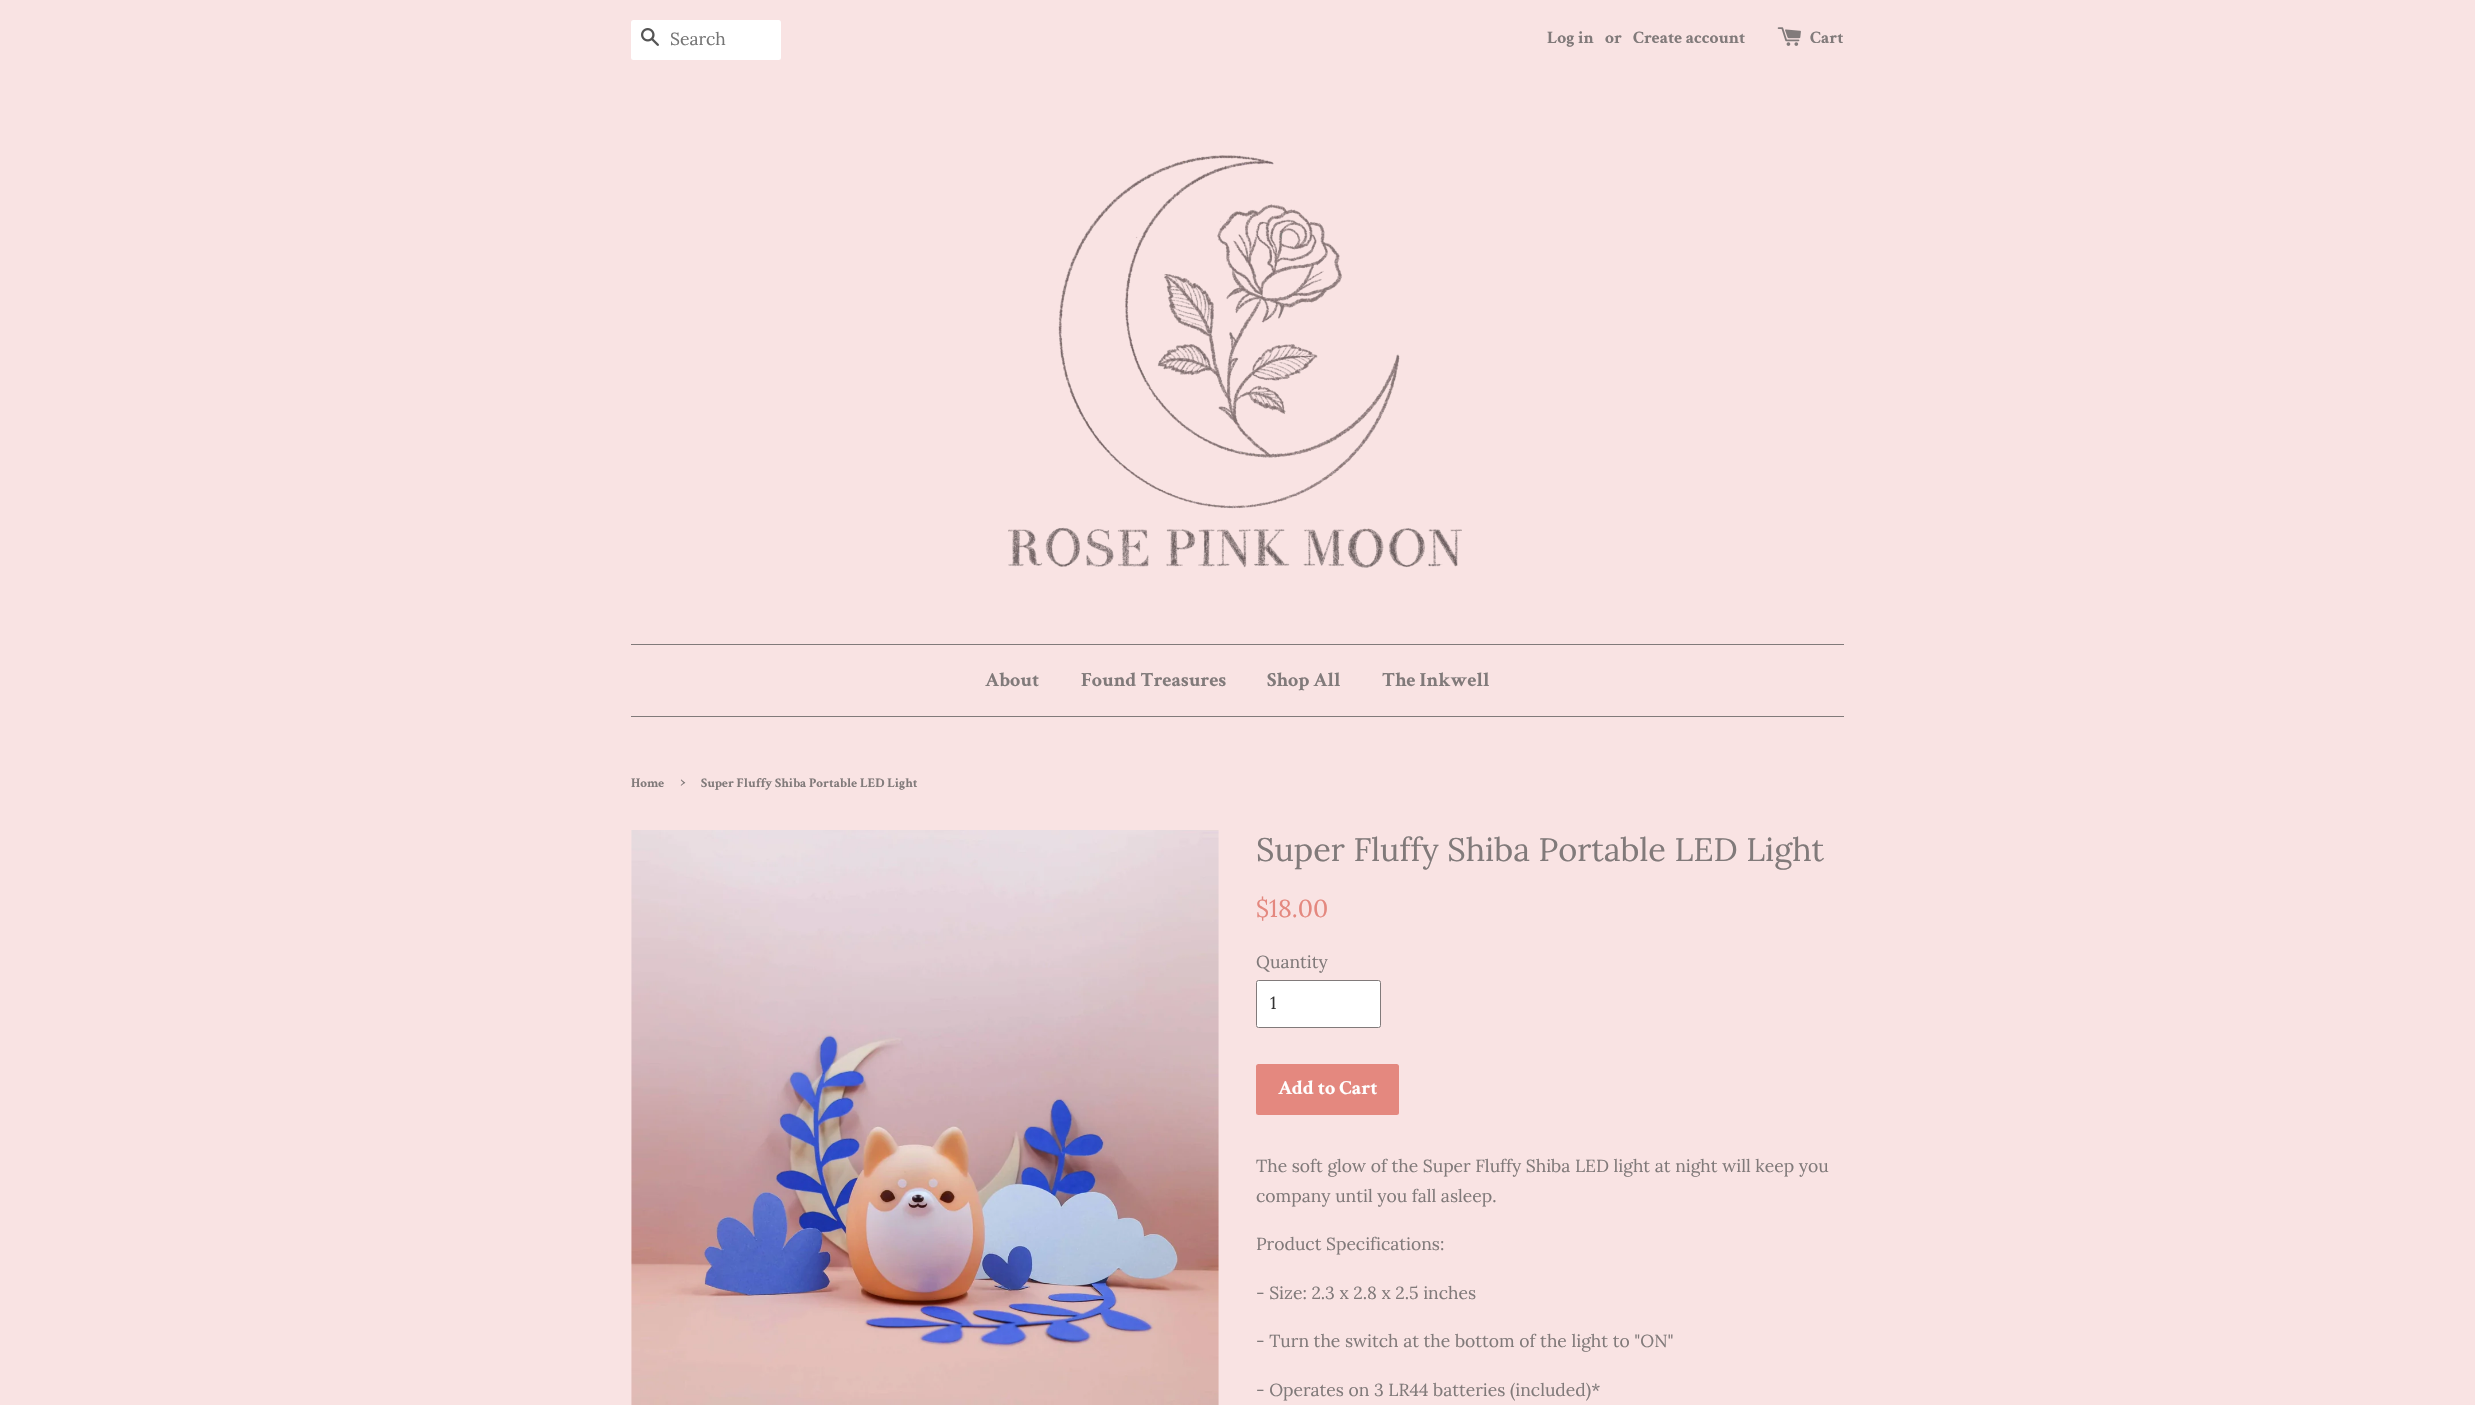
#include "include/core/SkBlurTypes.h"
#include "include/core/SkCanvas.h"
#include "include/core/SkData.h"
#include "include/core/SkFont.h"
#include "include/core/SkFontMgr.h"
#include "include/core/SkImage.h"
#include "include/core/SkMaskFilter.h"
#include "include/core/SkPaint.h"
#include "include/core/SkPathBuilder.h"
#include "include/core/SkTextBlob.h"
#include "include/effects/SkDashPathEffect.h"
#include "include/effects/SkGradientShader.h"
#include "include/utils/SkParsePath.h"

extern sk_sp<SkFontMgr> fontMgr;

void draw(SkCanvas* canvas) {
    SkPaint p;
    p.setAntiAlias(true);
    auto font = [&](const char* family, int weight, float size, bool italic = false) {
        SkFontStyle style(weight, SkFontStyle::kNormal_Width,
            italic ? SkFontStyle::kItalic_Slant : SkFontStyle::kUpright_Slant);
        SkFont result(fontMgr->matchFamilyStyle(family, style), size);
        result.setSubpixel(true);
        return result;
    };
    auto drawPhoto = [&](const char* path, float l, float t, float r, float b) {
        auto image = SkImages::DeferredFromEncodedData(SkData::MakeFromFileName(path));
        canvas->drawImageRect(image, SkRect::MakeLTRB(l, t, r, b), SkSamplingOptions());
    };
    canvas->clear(0xFFF9E3E3);
    p.setColor(0xFFFFFFFF);
    canvas->drawRoundRect(SkRect::MakeLTRB(631, 20, 781, 60), 2.5f, 2.5f, p);
    drawPhoto("media/1.png", 641, 28, 659, 46);
    auto font1 = font("Lora", 400, 17.5f);
    p.setColor(0xFF757575);
    canvas->drawString("Search", 670, 45, font1, p);
    auto font2 = font("Crimson Text", 700, 17.5f);
    p.setColor(0xFF817A7A);
    {
        const struct { const char* s; float x, y; } items[] = {
            {"Log in", 1547, 43},
            {"or", 1605, 43},
            {"Create account", 1633, 43},
        };
        for (auto [s, x, y] : items) {
            canvas->drawString(s, x, y, font2, p);
        }
    }
    drawPhoto("media/2.png", 1777, 27, 1801, 46);
    canvas->drawString("Cart", 1810, 43, font2, p);
    drawPhoto("media/3.png", 1008, 155, 1462, 568);
    canvas->drawRect(SkRect::MakeLTRB(631, 644, 1844, 645), p);
    canvas->drawRect(SkRect::MakeLTRB(631, 716, 1844, 717), p);
    auto font3 = font("Crimson Text", 700, 20);
    {
        const struct { const char* s; float x, y; } items[] = {
            {"About", 985, 686},
            {"Found Treasures", 1081, 686},
            {"Shop All", 1267, 686},
            {"The Inkwell", 1382, 686},
        };
        for (auto [s, x, y] : items) {
            canvas->drawString(s, x, y, font3, p);
        }
    }
    auto font4 = font("Crimson Text", 700, 13.1f);
    canvas->drawString("Home", 631, 787, font4, p);
    auto font5 = font("Crimson Text", 700, 18);
    canvas->drawString("›", 680, 787, font5, p);
    canvas->drawString("Super Fluffy Shiba Portable LED Light", 701, 787, font4, p);
    drawPhoto("media/4.png", 631, 830, 1219, 1405);
    auto font6 = font("Lora", 400, 32.5f);
    canvas->drawString("Super Fluffy Shiba Portable LED Light", 1256, 861, font6, p);
    auto font7 = font("Lora", 400, 24.5f);
    p.setColor(0xFFE4887F);
    canvas->drawString("$18.00", 1256, 917, font7, p);
    p.setColor(0xFF817A7A);
    canvas->drawString("Quantity", 1256, 968, font1, p);
    p.setColor(0xFFFFFFFF);
    canvas->drawRoundRect(SkRect::MakeLTRB(1256.5f, 980.5f, 1380.5f, 1027.5f), 2, 2, p);
    p.setStyle(SkPaint::kStroke_Style);
    p.setStrokeWidth(1);
    p.setColor(0xFF817A7A);
    canvas->drawRoundRect(SkRect::MakeLTRB(1256.5f, 980.5f, 1380.5f, 1027.5f), 2, 2, p);
    p.setStyle(SkPaint::kFill_Style);
    p.setColor(0xFF333333);
    canvas->drawString("1", 1270, 1009, font1, p);
    p.setColor(0xFFE4887F);
    canvas->drawRoundRect(SkRect::MakeLTRB(1256, 1064, 1399, 1115), 2.5f, 2.5f, p);
    p.setColor(0xFFFFFFFF);
    canvas->drawString("Add to Cart", 1278, 1094, font3, p);
    p.setColor(0xFF817A7A);
    {
        const struct { const char* s; float x, y; } items[] = {
            {"The soft glow of the Super Fluffy Shiba LED light at night will keep you", 1256, 1172},
            {"company until you fall asleep.", 1256, 1202},
            {"Product Specifications:", 1256, 1250},
            {"- Size: 2.3 x 2.8 x 2.5 inches", 1256, 1299},
            {"- Turn the switch at the bottom of the light to \"ON\"", 1256, 1347},
            {"- Operates on 3 LR44 batteries (included)*", 1256, 1396},
        };
        for (auto [s, x, y] : items) {
            canvas->drawString(s, x, y, font1, p);
        }
    }
}
